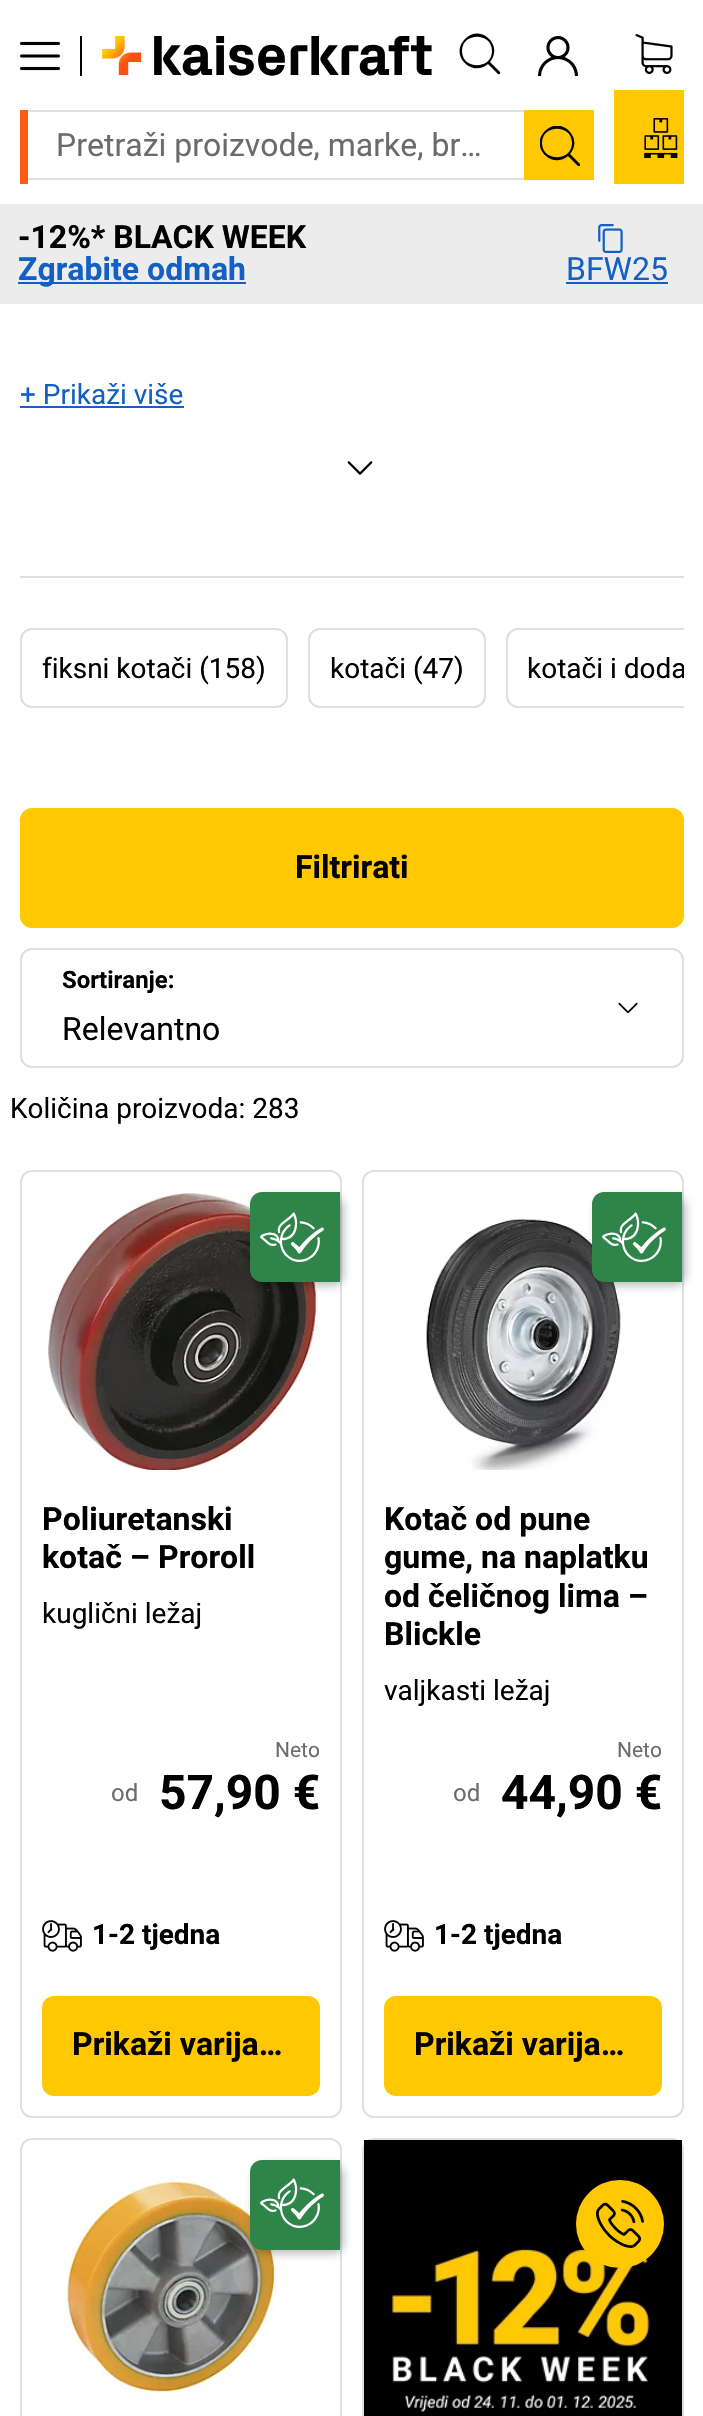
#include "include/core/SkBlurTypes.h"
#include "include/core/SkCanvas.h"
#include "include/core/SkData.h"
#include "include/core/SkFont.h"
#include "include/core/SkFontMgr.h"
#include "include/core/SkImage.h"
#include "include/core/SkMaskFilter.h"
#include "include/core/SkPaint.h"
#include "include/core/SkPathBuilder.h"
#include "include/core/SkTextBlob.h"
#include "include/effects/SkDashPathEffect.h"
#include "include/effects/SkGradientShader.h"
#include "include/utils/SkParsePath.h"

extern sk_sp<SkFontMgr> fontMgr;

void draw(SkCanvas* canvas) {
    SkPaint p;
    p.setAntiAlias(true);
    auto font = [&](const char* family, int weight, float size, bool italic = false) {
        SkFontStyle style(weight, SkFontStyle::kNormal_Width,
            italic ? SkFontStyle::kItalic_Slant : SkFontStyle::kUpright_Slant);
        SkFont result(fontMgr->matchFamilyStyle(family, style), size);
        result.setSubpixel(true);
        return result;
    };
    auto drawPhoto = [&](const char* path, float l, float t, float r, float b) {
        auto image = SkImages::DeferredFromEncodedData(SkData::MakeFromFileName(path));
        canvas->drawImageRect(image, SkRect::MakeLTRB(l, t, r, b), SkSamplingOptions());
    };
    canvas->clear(0xFFFFFFFF);
    p.setColor(0xFF000000);
    canvas->drawRect(SkRect::MakeLTRB(80, 36, 82, 76), p);
    drawPhoto("media/1.png", 20, 41, 60, 71);
    drawPhoto("media/2.png", 102, 36, 432, 76);
    canvas->drawPath(SkPathBuilder().moveTo(500, 72).lineTo(490, 62).cubicTo(504, 46, 481, 23, 465, 39).cubicTo(449, 55, 472, 78, 488, 64).lineTo(498, 74).cubicTo(499, 75, 501, 73, 500, 72).close().moveTo(462, 51).cubicTo(462, 32, 492, 32, 492, 51).cubicTo(492, 70, 462, 70, 462, 51).close().detach(), p);
    drawPhoto("media/3.png", 538, 36, 578, 76);
    drawPhoto("media/4.png", 635, 34, 673, 74);
    {
        const struct { float l, t, r, b; SkColor color; } items[] = {
            {20, 110, 524, 112, 0xFFDDE1E2},
            {20, 178, 524, 180, 0xFFDDE1E2},
            {20, 110, 28, 184, 0xFFFF5A12},
        };
        for (auto [l, t, r, b, color] : items) {
            p.setColor(color);
            canvas->drawRect(SkRect::MakeLTRB(l, t, r, b), p);
        }
    }
    auto font1 = font("Roboto", 400, 32);
    p.setColor(0xFF6B6B6B);
    canvas->drawString("Pretraži proizvode, marke, br…", 56, 156, font1, p);
    p.setColor(0xFFFFC800);
    canvas->drawRect(SkRect::MakeLTRB(524, 110, 594, 180), p);
    canvas->save();
    canvas->clipRect(SkRect::MakeLTRB(540, 126, 580, 166));
    p.setColor(0xFF000000);
    canvas->drawPath(SkPathBuilder().moveTo(580, 164).lineTo(570, 154).cubicTo(584, 138, 561, 115, 545, 131).cubicTo(529, 147, 552, 170, 568, 156).lineTo(578, 166).cubicTo(579, 167, 581, 165, 580, 164).close().moveTo(542, 143).cubicTo(542, 124, 572, 124, 572, 143).cubicTo(572, 162, 542, 162, 542, 143).close().detach(), p);
    canvas->restore();
    p.setColor(0xFFFFC800);
    canvas->drawRect(SkRect::MakeLTRB(614, 90, 684, 184), p);
    drawPhoto("media/5.png", 644, 118, 678, 158);
    p.setColor(0xFFECECEC);
    canvas->drawRect(SkRect::MakeLTRB(0, 204, 703, 304), p);
    auto font2 = font("Roboto", 700, 32);
    p.setColor(0xFF000000);
    canvas->drawString("-12%* BLACK WEEK", 18, 248, font2, p);
    p.setColor(0xFF145FC3);
    canvas->drawRect(SkRect::MakeLTRB(18, 282, 246, 284), p);
    canvas->drawString("Zgrabite odmah", 18, 280, font2, p);
    drawPhoto("media/6.png", 598, 224, 623, 253);
    canvas->drawString("BFW25", 566, 280, font1, p);
    canvas->drawRect(SkRect::MakeLTRB(566, 282, 668, 284), p);
    auto font3 = font("Roboto", 400, 28);
    canvas->drawString("+ Prikaži više", 20, 404, font3, p);
    canvas->drawRect(SkRect::MakeLTRB(20, 406, 184, 408), p);
    drawPhoto("media/7.png", 347, 461, 373, 475);
    p.setColor(0xFFDDE1E2);
    canvas->drawRect(SkRect::MakeLTRB(20, 576, 684, 578), p);
    p.setStyle(SkPaint::kStroke_Style);
    p.setStrokeWidth(2);
    canvas->drawRoundRect(SkRect::MakeLTRB(21, 629, 287, 707), 11, 11, p);
    p.setStyle(SkPaint::kFill_Style);
    p.setColor(0xFF000000);
    canvas->drawString("fiksni kotači (158)", 42, 678, font3, p);
    p.setStyle(SkPaint::kStroke_Style);
    p.setColor(0xFFDDE1E2);
    canvas->drawRoundRect(SkRect::MakeLTRB(309, 629, 485, 707), 11, 11, p);
    p.setStyle(SkPaint::kFill_Style);
    p.setColor(0xFF000000);
    canvas->drawString("kotači (47)", 330, 678, font3, p);
    canvas->save();
    canvas->clipRect(SkRect::MakeLTRB(20, 618, 684, 708));
    p.setStyle(SkPaint::kStroke_Style);
    p.setColor(0xFFDDE1E2);
    canvas->drawRoundRect(SkRect::MakeLTRB(507, 629, 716, 707), 11, 11, p);
    p.setStyle(SkPaint::kFill_Style);
    p.setColor(0xFF000000);
    canvas->drawString("kotači i doda", 527, 678, font3, p);
    canvas->restore();
    p.setColor(0xFFFFC800);
    canvas->drawRoundRect(SkRect::MakeLTRB(20, 808, 684, 928), 12, 12, p);
    p.setColor(0xFF000000);
    canvas->drawString("Filtrirati", 295, 878, font2, p);
    p.setStyle(SkPaint::kStroke_Style);
    p.setColor(0xFFDDE1E2);
    canvas->drawRoundRect(SkRect::MakeLTRB(21, 949, 683, 1067), 11, 11, p);
    auto font4 = font("Roboto", 700, 24);
    p.setStyle(SkPaint::kFill_Style);
    p.setColor(0xFF000000);
    canvas->drawString("Sortiranje:", 62, 988, font4, p);
    canvas->drawString("Relevantno", 62, 1040, font1, p);
    drawPhoto("media/8.png", 618, 1002, 638, 1014);
    canvas->drawString("Količina proizvoda: 283", 10, 1118, font3, p);
    p.setStyle(SkPaint::kStroke_Style);
    p.setColor(0xFFDDE1E2);
    canvas->drawRoundRect(SkRect::MakeLTRB(21, 1171, 341, 2117), 11, 11, p);
    drawPhoto("media/10.png", 47, 1193, 318, 1470);
    p.setStyle(SkPaint::kFill_Style);
    p.setColor(0x40000000);
    p.setMaskFilter(SkMaskFilter::MakeBlur(kNormal_SkBlurStyle, 4));
    canvas->drawRoundRect(SkRect::MakeLTRB(254, 1196, 344, 1286), 12, 12, p);
    p.setMaskFilter(nullptr);
    p.setColor(0xFF2F8449);
    canvas->drawPath(SkPathBuilder().moveTo(262, 1192).lineTo(340, 1192).lineTo(340, 1282).lineTo(262, 1282).cubicTo(255.5f, 1282, 250, 1276.5f, 250, 1270).lineTo(250, 1204).cubicTo(250, 1197.5f, 255.5f, 1192, 262, 1192).close().detach(), p);
    drawPhoto("media/9.png", 260, 1212, 324, 1262);
    p.setColor(0xFF000000);
    canvas->drawString("Poliuretanski", 42, 1530, font2, p);
    canvas->drawString("kotač – Proroll", 42, 1568, font2, p);
    canvas->drawString("kuglični ležaj", 42, 1623, font3, p);
    auto font5 = font("Roboto", 400, 21);
    p.setColor(0xFF6B6B6B);
    canvas->drawString("Neto", 275, 1757, font5, p);
    auto font6 = font("Roboto", 400, 24);
    canvas->drawString("od", 111, 1801, font6, p);
    auto font7 = font("Roboto", 700, 48);
    p.setColor(0xFF000000);
    canvas->drawString("57,90 €", 159, 1809, font7, p);
    drawPhoto("media/11.png", 42, 1920, 82, 1952);
    auto font8 = font("Roboto", 700, 28);
    canvas->drawString("1-2 tjedna", 92, 1944, font8, p);
    p.setColor(0xFFFFC800);
    canvas->drawRoundRect(SkRect::MakeLTRB(42, 1996, 320, 2096), 12, 12, p);
    p.setColor(0xFF000000);
    canvas->drawString("Prikaži varija…", 72, 2055, font2, p);
    p.setStyle(SkPaint::kStroke_Style);
    p.setColor(0xFFDDE1E2);
    canvas->drawRoundRect(SkRect::MakeLTRB(363, 1171, 683, 2117), 11, 11, p);
    drawPhoto("media/12.png", 426, 1218, 621, 1470);
    p.setStyle(SkPaint::kFill_Style);
    p.setColor(0x40000000);
    p.setMaskFilter(SkMaskFilter::MakeBlur(kNormal_SkBlurStyle, 4));
    canvas->drawRoundRect(SkRect::MakeLTRB(596, 1196, 686, 1286), 12, 12, p);
    p.setMaskFilter(nullptr);
    p.setColor(0xFF2F8449);
    canvas->drawPath(SkPathBuilder().moveTo(604, 1192).lineTo(682, 1192).lineTo(682, 1282).lineTo(604, 1282).cubicTo(597.5f, 1282, 592, 1276.5f, 592, 1270).lineTo(592, 1204).cubicTo(592, 1197.5f, 597.5f, 1192, 604, 1192).close().detach(), p);
    drawPhoto("media/9.png", 602, 1212, 666, 1262);
    p.setColor(0xFF000000);
    {
        const struct { const char* s; float x, y; } items[] = {
            {"Kotač od pune", 384, 1530},
            {"gume, na naplatku", 384, 1568},
            {"od čeličnog lima –", 384, 1607},
            {"Blickle", 384, 1645},
        };
        for (auto [s, x, y] : items) {
            canvas->drawString(s, x, y, font2, p);
        }
    }
    canvas->drawString("valjkasti ležaj", 384, 1700, font3, p);
    p.setColor(0xFF6B6B6B);
    canvas->drawString("Neto", 617, 1757, font5, p);
    canvas->drawString("od", 453, 1801, font6, p);
    p.setColor(0xFF000000);
    canvas->drawString("44,90 €", 501, 1809, font7, p);
    drawPhoto("media/11.png", 384, 1920, 424, 1952);
    canvas->drawString("1-2 tjedna", 434, 1944, font8, p);
    p.setColor(0xFFFFC800);
    canvas->drawRoundRect(SkRect::MakeLTRB(384, 1996, 662, 2096), 12, 12, p);
    p.setColor(0xFF000000);
    canvas->drawString("Prikaži varija…", 414, 2055, font2, p);
    p.setStyle(SkPaint::kStroke_Style);
    p.setColor(0xFFDDE1E2);
    canvas->drawRoundRect(SkRect::MakeLTRB(21, 2139, 341, 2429), 11, 11, p);
    drawPhoto("media/13.png", 60, 2176, 276, 2399);
    p.setStyle(SkPaint::kFill_Style);
    p.setColor(0x40000000);
    p.setMaskFilter(SkMaskFilter::MakeBlur(kNormal_SkBlurStyle, 4));
    canvas->drawRoundRect(SkRect::MakeLTRB(254, 2164, 344, 2254), 12, 12, p);
    p.setMaskFilter(nullptr);
    p.setColor(0xFF2F8449);
    canvas->drawPath(SkPathBuilder().moveTo(262, 2160).lineTo(340, 2160).lineTo(340, 2250).lineTo(262, 2250).cubicTo(255.5f, 2250, 250, 2244.5f, 250, 2238).lineTo(250, 2172).cubicTo(250, 2165.5f, 255.5f, 2160, 262, 2160).close().detach(), p);
    drawPhoto("media/9.png", 260, 2178, 324, 2228);
    p.setStyle(SkPaint::kStroke_Style);
    p.setColor(0xFFDDE1E2);
    canvas->drawRoundRect(SkRect::MakeLTRB(363, 2139, 683, 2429), 11, 11, p);
    drawPhoto("media/14.png", 364, 2140, 682, 2416);
    p.setStyle(SkPaint::kFill_Style);
    p.setColor(0xFFFFC800);
    canvas->drawCircle(620, 2224, 44, p);
    drawPhoto("media/15.png", 596, 2200, 644, 2248);
}
